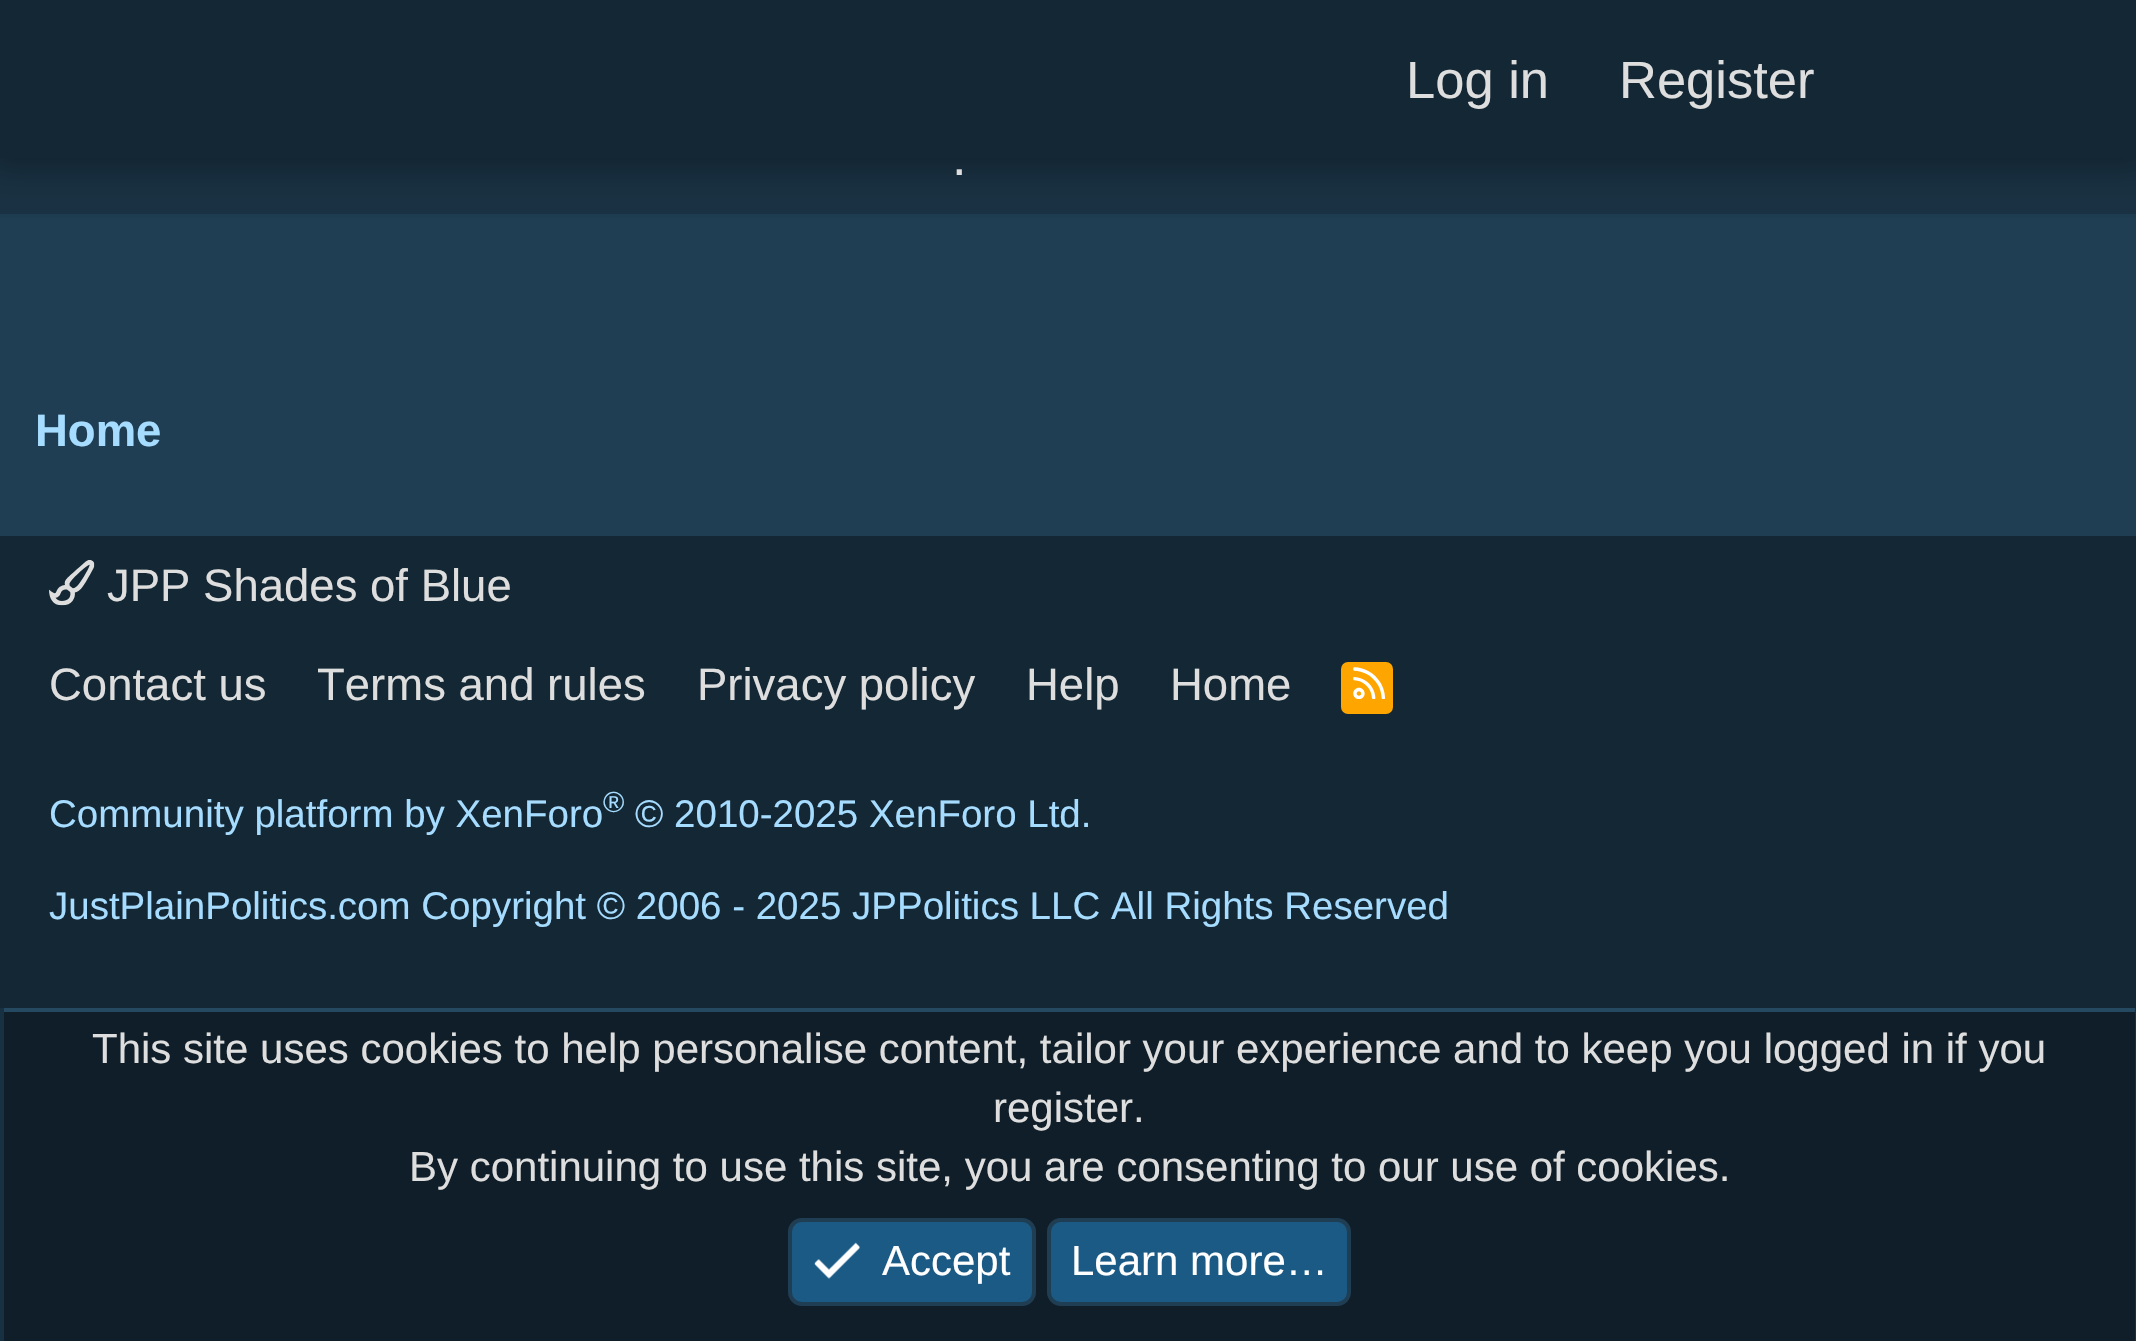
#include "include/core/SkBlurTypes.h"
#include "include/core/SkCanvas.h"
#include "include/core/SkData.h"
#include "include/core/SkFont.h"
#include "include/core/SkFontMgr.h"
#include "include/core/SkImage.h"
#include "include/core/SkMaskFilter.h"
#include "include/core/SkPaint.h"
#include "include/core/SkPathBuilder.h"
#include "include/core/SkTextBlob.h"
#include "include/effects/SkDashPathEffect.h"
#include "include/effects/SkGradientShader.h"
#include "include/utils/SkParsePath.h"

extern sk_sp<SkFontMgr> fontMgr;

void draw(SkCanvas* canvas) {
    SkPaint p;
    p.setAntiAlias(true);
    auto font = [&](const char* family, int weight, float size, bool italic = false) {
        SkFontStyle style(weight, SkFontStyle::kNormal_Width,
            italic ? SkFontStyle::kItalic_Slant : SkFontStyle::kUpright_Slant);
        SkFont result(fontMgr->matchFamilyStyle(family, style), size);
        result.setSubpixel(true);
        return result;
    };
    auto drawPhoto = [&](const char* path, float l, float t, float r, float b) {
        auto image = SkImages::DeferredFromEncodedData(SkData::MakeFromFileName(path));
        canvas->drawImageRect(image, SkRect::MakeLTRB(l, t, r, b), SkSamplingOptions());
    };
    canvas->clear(0xFF203E53);
    p.setColor(0xFF193142);
    canvas->drawRect(SkRect::MakeLTRB(0, 158, 2136, 214), p);
    p.setColor(0x4D000000);
    p.setMaskFilter(SkMaskFilter::MakeBlur(kNormal_SkBlurStyle, 14));
    canvas->drawRect(SkRect::MakeLTRB(-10, -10, 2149, 168), p);
    p.setMaskFilter(nullptr);
    p.setColor(0xFF142734);
    canvas->drawRect(SkRect::MakeLTRB(0, 0, 2136, 158), p);
    auto font1 = font("Liberation Sans", 400, 52.5f);
    p.setColor(0xFFDEDEDE);
    canvas->drawString("Log in", 1406, 98, font1, p);
    canvas->drawString("Register", 1619, 98, font1, p);
    p.setColor(0xFF1D3C50);
    canvas->drawRect(SkRect::MakeLTRB(0, 214, 2136, 218), p);
    p.setColor(0xFFDEDEDE);
    canvas->drawString(".", 952, 175, font1, p);
    auto font2 = font("Liberation Sans", 700, 45.5f);
    p.setColor(0xFFA6DCFF);
    canvas->drawString("Home", 35, 446, font2, p);
    p.setColor(0xFF142734);
    canvas->drawRect(SkRect::MakeLTRB(0, 536, 2136, 1008), p);
    drawPhoto("media/1.png", 49, 560, 95, 606);
    auto font3 = font("Liberation Sans", 400, 45.5f);
    p.setColor(0xFFDEDEDE);
    {
        const struct { const char* s; float x, y; } items[] = {
            {"JPP Shades of Blue", 107, 601},
            {"Contact us", 49, 700},
            {"Terms and rules", 317, 700},
            {"Privacy policy", 697, 700},
            {"Help", 1026, 700},
            {"Home", 1170, 700},
        };
        for (auto [s, x, y] : items) {
            canvas->drawString(s, x, y, font3, p);
        }
    }
    p.setColor(0xFFFFA500);
    canvas->drawRoundRect(SkRect::MakeLTRB(1341, 662, 1393, 714), 7, 7, p);
    drawPhoto("media/2.png", 1353, 667, 1385, 699);
    auto font4 = font("Liberation Sans", 400, 38.5f);
    p.setColor(0xFFA6DCFF);
    canvas->drawString("Community platform by XenForo", 49, 827, font4, p);
    auto font5 = font("Liberation Sans", 400, 29);
    canvas->drawString("®", 603, 812, font5, p);
    canvas->drawString("© 2010-2025 XenForo Ltd.", 635, 827, font4, p);
    canvas->drawString("JustPlainPolitics.com Copyright © 2006 - 2025 JPPolitics LLC All Rights Reserved", 49, 919, font4, p);
    {
        const struct { float l, t, r, b; SkColor color; } items[] = {
            {4, 1012, 2135, 1341, 0xFF0F1E28},
            {0, 1008, 2136, 1012, 0xFF244961},
            {2135, 1008, 2136, 1341, 0xFF173142},
            {0, 1008, 4, 1341, 0xFF173142},
        };
        for (auto [l, t, r, b, color] : items) {
            p.setColor(color);
            canvas->drawRect(SkRect::MakeLTRB(l, t, r, b), p);
        }
    }
    auto font6 = font("Liberation Sans", 400, 42);
    p.setColor(0xFFDEDEDE);
    {
        const struct { const char* s; float x, y; } items[] = {
            {"This site uses cookies to help personalise content, tailor your experience and to keep you logged in if you", 92, 1063},
            {"register.", 993, 1122},
            {"By continuing to use this site, you are consenting to our use of cookies.", 409, 1181},
        };
        for (auto [s, x, y] : items) {
            canvas->drawString(s, x, y, font6, p);
        }
    }
    p.setColor(0xFF1C5A86);
    canvas->drawRoundRect(SkRect::MakeLTRB(790, 1220, 1034, 1304), 12, 12, p);
    p.setStyle(SkPaint::kStroke_Style);
    p.setStrokeWidth(4);
    p.setColor(0xFF203E53);
    canvas->drawRoundRect(SkRect::MakeLTRB(790, 1220, 1034, 1304), 12, 12, p);
    drawPhoto("media/3.png", 814, 1242, 860, 1279);
    p.setStyle(SkPaint::kFill_Style);
    p.setColor(0xFFFFFFFF);
    canvas->drawString("Accept", 882, 1275, font6, p);
    p.setColor(0xFF1C5A86);
    canvas->drawRoundRect(SkRect::MakeLTRB(1049, 1220, 1349, 1304), 12, 12, p);
    p.setStyle(SkPaint::kStroke_Style);
    p.setColor(0xFF203E53);
    canvas->drawRoundRect(SkRect::MakeLTRB(1049, 1220, 1349, 1304), 12, 12, p);
    p.setStyle(SkPaint::kFill_Style);
    p.setColor(0xFFFFFFFF);
    canvas->drawString("Learn more…", 1071, 1275, font6, p);
}
